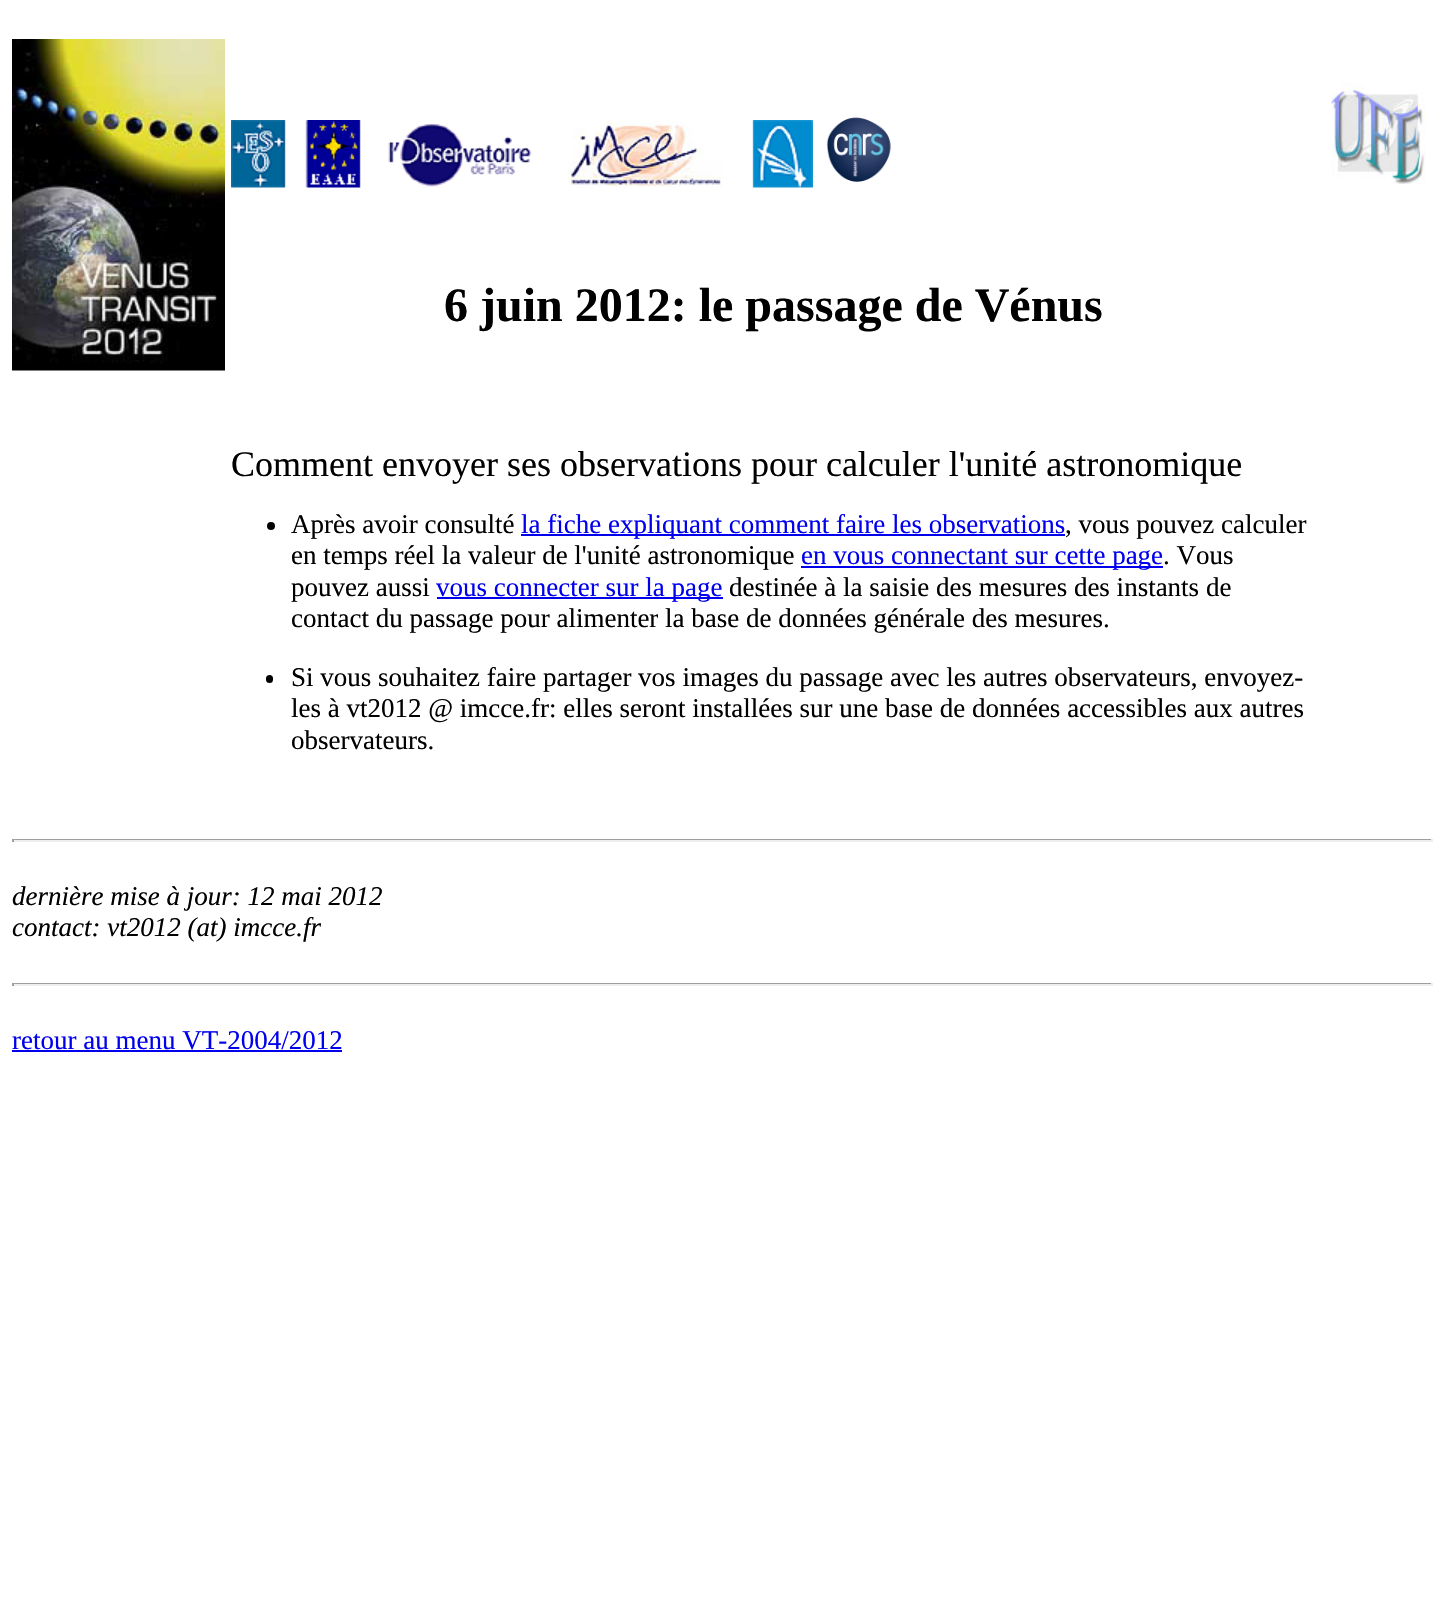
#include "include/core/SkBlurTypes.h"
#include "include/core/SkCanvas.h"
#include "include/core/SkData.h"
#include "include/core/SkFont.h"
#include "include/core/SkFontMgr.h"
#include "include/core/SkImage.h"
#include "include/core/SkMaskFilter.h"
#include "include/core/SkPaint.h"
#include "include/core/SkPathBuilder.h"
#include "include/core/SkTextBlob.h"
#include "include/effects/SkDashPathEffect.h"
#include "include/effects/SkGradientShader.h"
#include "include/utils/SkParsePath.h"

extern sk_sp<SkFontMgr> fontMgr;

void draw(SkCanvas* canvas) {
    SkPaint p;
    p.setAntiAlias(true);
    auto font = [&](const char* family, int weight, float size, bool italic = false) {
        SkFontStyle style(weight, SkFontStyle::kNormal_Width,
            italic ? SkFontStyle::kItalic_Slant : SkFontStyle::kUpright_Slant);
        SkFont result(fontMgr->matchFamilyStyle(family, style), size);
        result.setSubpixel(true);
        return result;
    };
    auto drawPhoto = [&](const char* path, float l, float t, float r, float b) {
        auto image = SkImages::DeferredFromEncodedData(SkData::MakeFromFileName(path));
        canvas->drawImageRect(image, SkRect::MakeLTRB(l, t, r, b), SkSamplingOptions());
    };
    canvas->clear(0xFFFFFFFF);
    drawPhoto("media/1.png", 12, 39, 225, 371);
    drawPhoto("media/2.png", 231, 120, 813, 188);
    drawPhoto("media/3.png", 826, 117, 891, 182);
    drawPhoto("media/4.png", 1331, 82, 1426, 184);
    auto font1 = font("Liberation Serif", 700, 48);
    p.setColor(0xFF000000);
    canvas->drawString("6 juin 2012: le passage de Vénus", 444, 321, font1, p);
    auto font2 = font("Liberation Serif", 400, 36);
    canvas->drawString("Comment envoyer ses observations pour calculer l'unité astronomique", 231, 476, font2, p);
    canvas->drawCircle(271, 526, 4, p);
    auto font3 = font("Liberation Serif", 400, 27);
    canvas->drawString("Après avoir consulté", 291, 533, font3, p);
    p.setColor(0xFF0000EE);
    canvas->drawRect(SkRect::MakeLTRB(521, 534, 1065, 536), p);
    canvas->drawString("la fiche expliquant comment faire les observations", 521, 533, font3, p);
    p.setColor(0xFF000000);
    canvas->drawString(", vous pouvez calculer", 1065, 533, font3, p);
    canvas->drawString("en temps réel la valeur de l'unité astronomique", 291, 564, font3, p);
    p.setColor(0xFF0000EE);
    canvas->drawRect(SkRect::MakeLTRB(801, 566, 1163, 568), p);
    canvas->drawString("en vous connectant sur cette page", 801, 564, font3, p);
    p.setColor(0xFF000000);
    canvas->drawString(". Vous", 1163, 564, font3, p);
    canvas->drawString("pouvez aussi", 291, 596, font3, p);
    p.setColor(0xFF0000EE);
    canvas->drawRect(SkRect::MakeLTRB(437, 597, 723, 599), p);
    canvas->drawString("vous connecter sur la page", 436, 596, font3, p);
    p.setColor(0xFF000000);
    canvas->drawString("destinée à la saisie des mesures des instants de", 729, 596, font3, p);
    canvas->drawString("contact du passage pour alimenter la base de données générale des mesures.", 291, 627, font3, p);
    canvas->drawRoundRect(SkRect::MakeLTRB(266, 675, 273, 683), 3.5f, 3.5f, p);
    {
        const struct { const char* s; float x, y; } items[] = {
            {"Si vous souhaitez faire partager vos images du passage avec les autres observateurs, envoyez-", 291, 686},
            {"les à vt2012 @ imcce.fr: elles seront installées sur une base de données accessibles aux autres", 291, 717},
            {"observateurs.", 291, 749},
        };
        for (auto [s, x, y] : items) {
            canvas->drawString(s, x, y, font3, p);
        }
    }
    {
        const struct { float l, t, r, b; SkColor color; } items[] = {
            {12, 839, 1433, 840, 0xFF9F9F9F},
            {1431, 839, 1433, 842, 0xFFEEEEEE},
            {12, 840, 1433, 842, 0xFFEEEEEE},
            {12, 839, 14, 842, 0xFF9F9F9F},
        };
        for (auto [l, t, r, b, color] : items) {
            p.setColor(color);
            canvas->drawRect(SkRect::MakeLTRB(l, t, r, b), p);
        }
    }
    auto font4 = font("Liberation Serif", 400, 27, true);
    p.setColor(0xFF000000);
    canvas->drawString("dernière mise à jour: 12 mai 2012", 12, 905, font4, p);
    canvas->drawString("contact: vt2012 (at) imcce.fr", 12, 936, font4, p);
    {
        const struct { float l, t, r, b; SkColor color; } items[] = {
            {12, 983, 1433, 984, 0xFF9F9F9F},
            {1431, 983, 1433, 986, 0xFFEEEEEE},
            {12, 984, 1433, 986, 0xFFEEEEEE},
            {12, 983, 14, 986, 0xFF9F9F9F},
        };
        for (auto [l, t, r, b, color] : items) {
            p.setColor(color);
            canvas->drawRect(SkRect::MakeLTRB(l, t, r, b), p);
        }
    }
    p.setColor(0xFF0000EE);
    canvas->drawString("retour au menu VT-2004/2012", 12, 1049, font3, p);
    canvas->drawRect(SkRect::MakeLTRB(12, 1050, 342, 1052), p);
}
